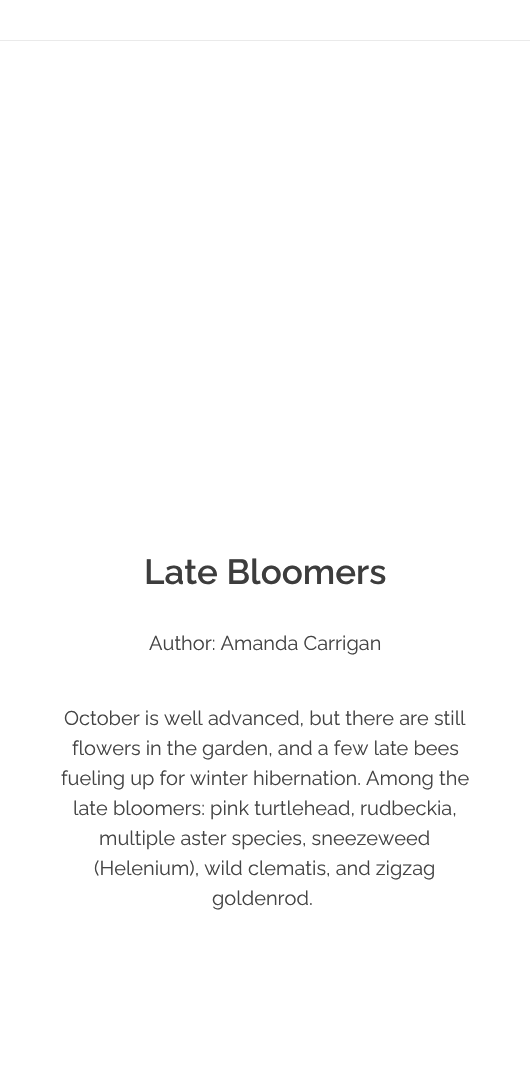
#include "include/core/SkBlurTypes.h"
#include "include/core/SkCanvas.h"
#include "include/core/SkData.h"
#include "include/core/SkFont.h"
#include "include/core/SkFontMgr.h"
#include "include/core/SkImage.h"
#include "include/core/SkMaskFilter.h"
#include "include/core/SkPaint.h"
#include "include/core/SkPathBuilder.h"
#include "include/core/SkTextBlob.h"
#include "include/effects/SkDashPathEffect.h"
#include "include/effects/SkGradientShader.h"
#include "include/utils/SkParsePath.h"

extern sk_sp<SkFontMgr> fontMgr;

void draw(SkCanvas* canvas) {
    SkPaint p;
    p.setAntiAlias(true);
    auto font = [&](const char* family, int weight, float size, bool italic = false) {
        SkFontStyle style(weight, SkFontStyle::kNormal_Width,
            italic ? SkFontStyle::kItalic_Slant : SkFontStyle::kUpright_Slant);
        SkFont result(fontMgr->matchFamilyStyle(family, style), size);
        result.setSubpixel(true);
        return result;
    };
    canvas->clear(0xFFFFFFFF);
    p.setColor(0xFFEAEAEA);
    canvas->drawRect(SkRect::MakeLTRB(0, 40, 530, 41), p);
    auto font1 = font("Raleway", 600, 35);
    p.setColor(0xFF3D3D3D);
    canvas->drawString("Late Bloomers", 144, 584, font1, p);
    auto font2 = font("Raleway", 400, 20);
    p.setColor(0xFF444444);
    {
        const struct { const char* s; float x, y; } items[] = {
            {"Author: Amanda Carrigan", 149, 650},
            {"October is well advanced, but there are still", 64, 725},
            {"flowers in the garden, and a few late bees", 72, 755},
            {"fueling up for winter hibernation. Among the", 61, 785},
            {"late bloomers: pink turtlehead, rudbeckia,", 73, 815},
            {"multiple aster species, sneezeweed", 99, 845},
            {"(Helenium), wild clematis, and zigzag", 94, 875},
            {"goldenrod.", 212, 905},
        };
        for (auto [s, x, y] : items) {
            canvas->drawString(s, x, y, font2, p);
        }
    }
}
